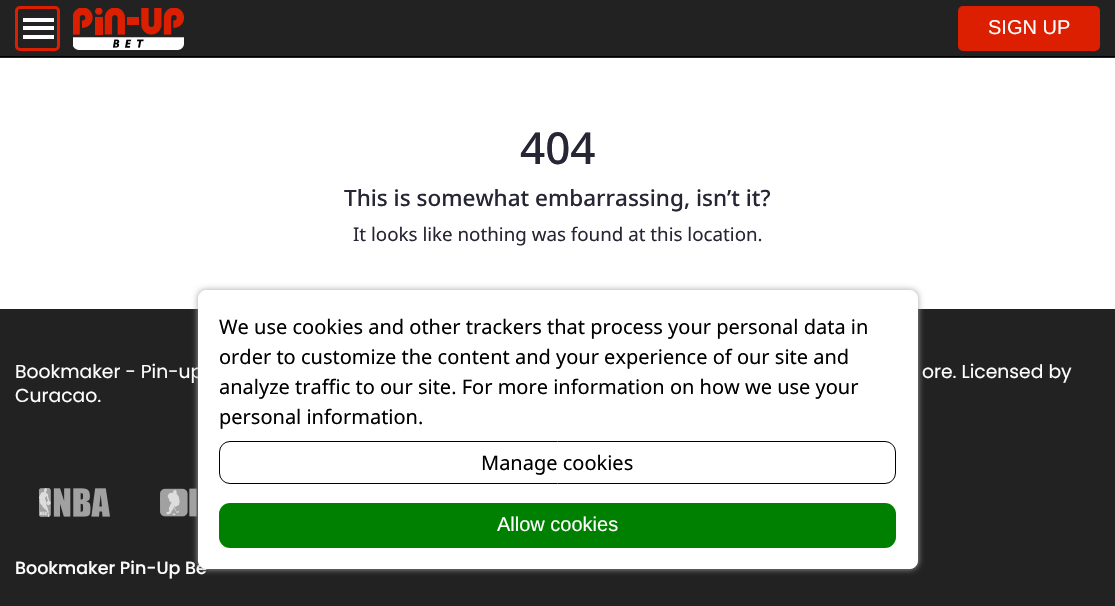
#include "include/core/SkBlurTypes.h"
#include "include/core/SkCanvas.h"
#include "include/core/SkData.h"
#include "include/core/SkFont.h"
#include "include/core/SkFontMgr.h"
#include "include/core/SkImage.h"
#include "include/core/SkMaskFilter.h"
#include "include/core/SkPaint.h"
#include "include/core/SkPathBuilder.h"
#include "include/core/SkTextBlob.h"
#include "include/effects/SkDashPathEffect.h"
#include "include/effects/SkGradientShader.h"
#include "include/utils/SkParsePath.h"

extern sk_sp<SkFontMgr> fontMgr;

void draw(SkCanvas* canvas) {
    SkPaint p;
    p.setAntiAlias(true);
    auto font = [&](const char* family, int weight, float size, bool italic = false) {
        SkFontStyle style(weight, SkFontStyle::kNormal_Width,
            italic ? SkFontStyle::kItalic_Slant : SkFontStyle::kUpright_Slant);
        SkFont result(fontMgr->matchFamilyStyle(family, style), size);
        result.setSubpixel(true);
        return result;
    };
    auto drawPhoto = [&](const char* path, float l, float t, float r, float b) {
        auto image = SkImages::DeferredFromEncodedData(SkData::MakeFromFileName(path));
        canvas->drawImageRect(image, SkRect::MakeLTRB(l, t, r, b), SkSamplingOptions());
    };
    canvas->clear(0xFFFFFFFF);
    p.setColor(0xFF222222);
    canvas->drawRect(SkRect::MakeLTRB(0, 0, 1115, 58), p);
    p.setColor(0xFF000000);
    canvas->drawRect(SkRect::MakeLTRB(0, 56, 1115, 57), p);
    p.setStyle(SkPaint::kStroke_Style);
    p.setStrokeWidth(3);
    p.setColor(0xFFDC1F00);
    canvas->drawRoundRect(SkRect::MakeLTRB(16.5f, 7.5f, 58.5f, 49.5f), 3.5f, 3.5f, p);
    p.setStyle(SkPaint::kFill_Style);
    {
        const struct { float l, t, r, b; SkColor color; } items[] = {
            {23, 26, 54, 30, 0xFFFFFFFF},
            {23, 18, 54, 22, 0xFFFFFFFF},
            {23, 35, 54, 39, 0xFFFFFFFF},
        };
        for (auto [l, t, r, b, color] : items) {
            p.setColor(color);
            canvas->drawRect(SkRect::MakeLTRB(l, t, r, b), p);
        }
    }
    drawPhoto("media/1.png", 73, 8, 184, 50);
    p.setColor(0xFFDC1F00);
    canvas->drawRoundRect(SkRect::MakeLTRB(958, 6, 1100, 51), 5, 5, p);
    auto font1 = font("Liberation Sans", 400, 20);
    p.setColor(0xFFFFFFFF);
    canvas->drawString("SIGN UP", 988, 34, font1, p);
    auto font2 = font("Noto Sans", 500, 44);
    p.setColor(0xFF262634);
    canvas->drawString("404", 520, 164, font2, p);
    auto font3 = font("Noto Sans", 500, 22.5f);
    canvas->drawString("This is somewhat embarrassing, isn’t it?", 344, 206, font3, p);
    auto font4 = font("Noto Sans", 400, 18.75f);
    canvas->drawString("It looks like nothing was found at this location.", 353, 241, font4, p);
    p.setColor(0xFF222222);
    canvas->drawRect(SkRect::MakeLTRB(0, 309, 1115, 606), p);
    auto font5 = font("Poppins", 400, 18.75f);
    p.setColor(0xFFFFFFFF);
    {
        const struct { const char* s; float x, y; } items[] = {
            {"Bookmaker - Pin-up", 15, 378},
            {"ore. Licensed by", 922, 378},
            {"Curacao.", 15, 402},
        };
        for (auto [s, x, y] : items) {
            canvas->drawString(s, x, y, font5, p);
        }
    }
    drawPhoto("media/2.png", 39, 488, 110, 517);
    drawPhoto("media/3.png", 160, 488, 197, 517);
    auto font6 = font("Poppins", 500, 17.5f);
    canvas->drawString("Bookmaker Pin-Up Be", 15, 574, font6, p);
    p.setColor(0xFFA1A3A4);
    p.setMaskFilter(SkMaskFilter::MakeBlur(kNormal_SkBlurStyle, 3));
    canvas->drawRoundRect(SkRect::MakeLTRB(198, 290, 918, 569), 8, 8, p);
    p.setMaskFilter(nullptr);
    p.setColor(0xFFFFFFFF);
    canvas->drawRoundRect(SkRect::MakeLTRB(198.5f, 290.5f, 917.5f, 568.5f), 7.5f, 7.5f, p);
    p.setStyle(SkPaint::kStroke_Style);
    p.setStrokeWidth(1);
    canvas->drawRoundRect(SkRect::MakeLTRB(198.5f, 290.5f, 917.5f, 568.5f), 7.5f, 7.5f, p);
    auto font7 = font("Noto Sans", 400, 20);
    p.setStyle(SkPaint::kFill_Style);
    p.setColor(0xFF000000);
    {
        const struct { const char* s; float x, y; } items[] = {
            {"We use cookies and other trackers that process your personal data in", 219, 334},
            {"order to customize the content and your experience of our site and", 219, 364},
            {"analyze traffic to our site. For more information on how we use your", 219, 394},
            {"personal information.", 219, 424},
        };
        for (auto [s, x, y] : items) {
            canvas->drawString(s, x, y, font7, p);
        }
    }
    p.setStyle(SkPaint::kStroke_Style);
    canvas->drawRoundRect(SkRect::MakeLTRB(219.5f, 441.5f, 895.5f, 483.5f), 10.5f, 10.5f, p);
    p.setStyle(SkPaint::kFill_Style);
    canvas->drawString("Manage cookies", 481, 470, font7, p);
    p.setColor(0xFF008000);
    canvas->drawRoundRect(SkRect::MakeLTRB(219, 503, 896, 548), 11, 11, p);
    p.setColor(0xFFFFFFFF);
    canvas->drawString("Allow cookies", 497, 531, font1, p);
}
